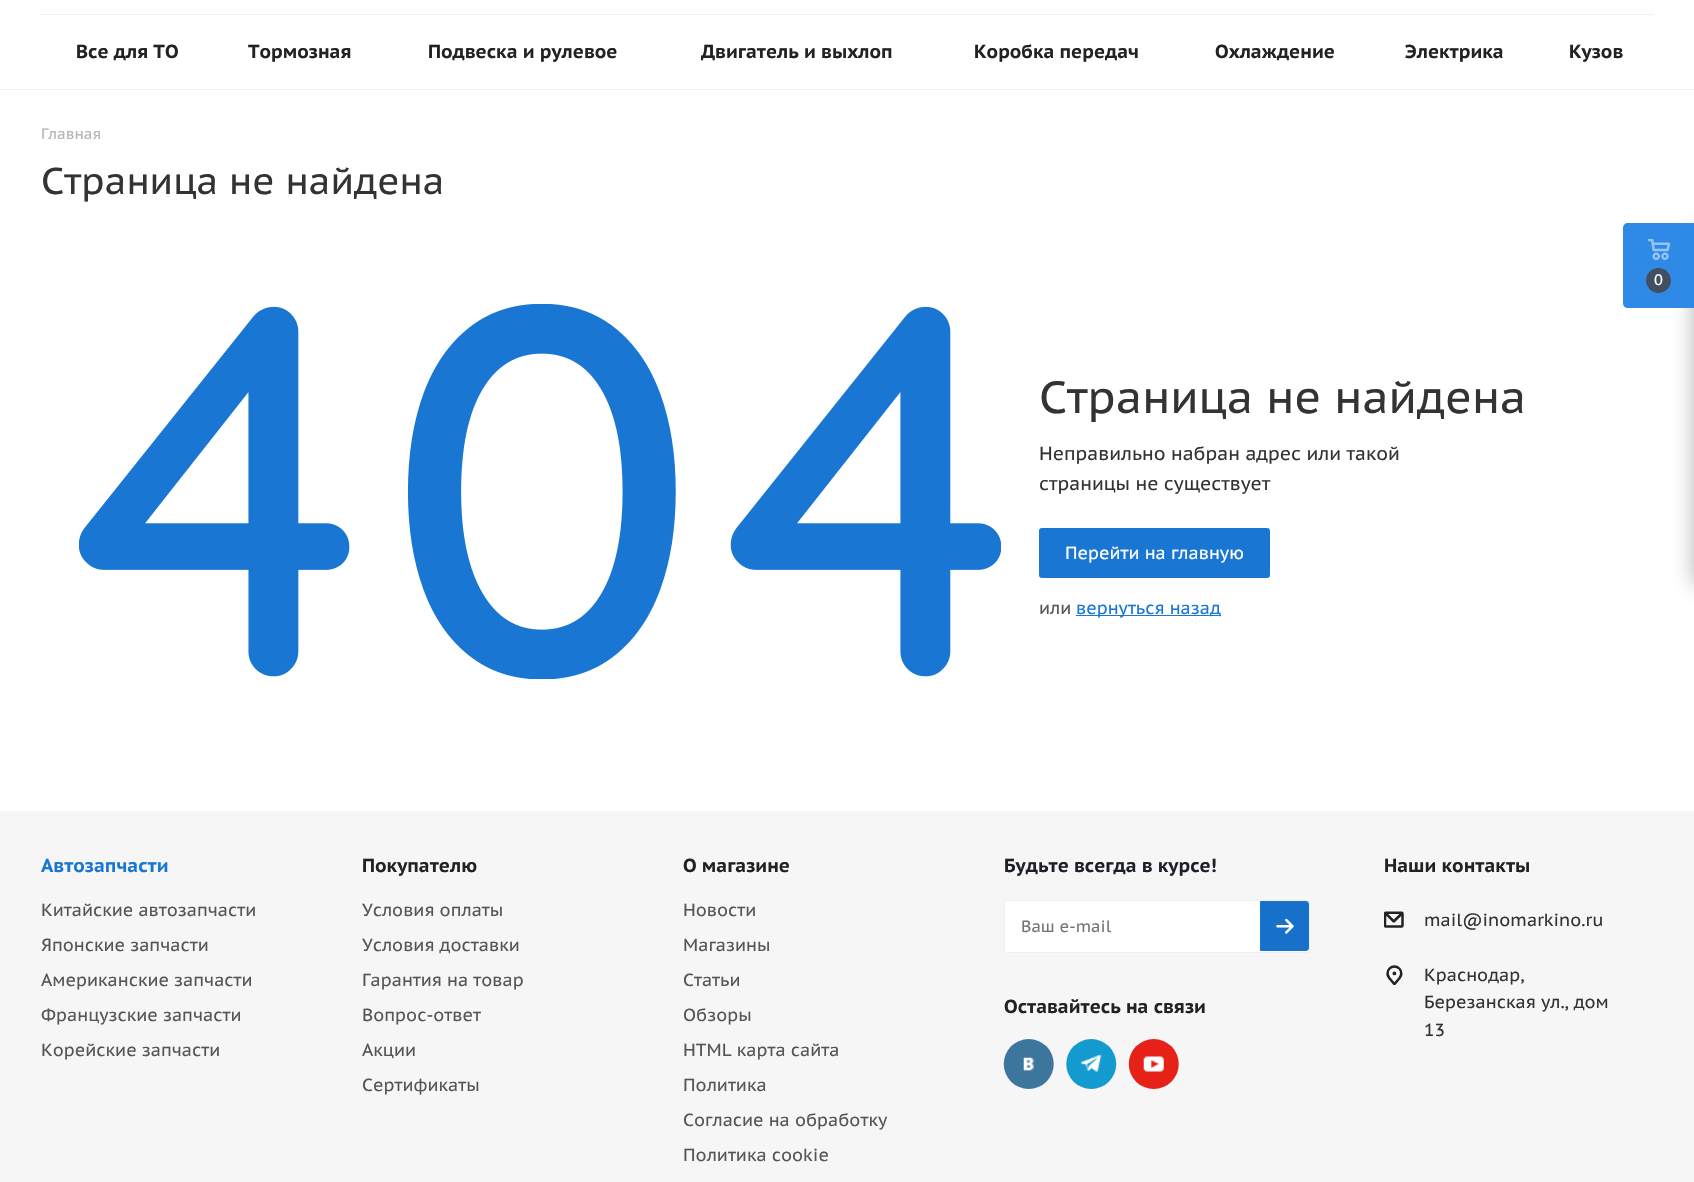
#include "include/core/SkBlurTypes.h"
#include "include/core/SkCanvas.h"
#include "include/core/SkData.h"
#include "include/core/SkFont.h"
#include "include/core/SkFontMgr.h"
#include "include/core/SkImage.h"
#include "include/core/SkMaskFilter.h"
#include "include/core/SkPaint.h"
#include "include/core/SkPathBuilder.h"
#include "include/core/SkTextBlob.h"
#include "include/effects/SkDashPathEffect.h"
#include "include/effects/SkGradientShader.h"
#include "include/utils/SkParsePath.h"

extern sk_sp<SkFontMgr> fontMgr;

void draw(SkCanvas* canvas) {
    SkPaint p;
    p.setAntiAlias(true);
    auto font = [&](const char* family, int weight, float size, bool italic = false) {
        SkFontStyle style(weight, SkFontStyle::kNormal_Width,
            italic ? SkFontStyle::kItalic_Slant : SkFontStyle::kUpright_Slant);
        SkFont result(fontMgr->matchFamilyStyle(family, style), size);
        result.setSubpixel(true);
        return result;
    };
    auto drawPhoto = [&](const char* path, float l, float t, float r, float b) {
        auto image = SkImages::DeferredFromEncodedData(SkData::MakeFromFileName(path));
        canvas->drawImageRect(image, SkRect::MakeLTRB(l, t, r, b), SkSamplingOptions());
    };
    canvas->clear(0xFFFFFFFF);
    p.setColor(0xFFF0F0F0);
    canvas->drawRect(SkRect::MakeLTRB(0, 89, 1694, 90), p);
    canvas->drawRect(SkRect::MakeLTRB(41, 14, 1654, 15), p);
    auto font1 = font("PT Sans Caption", 700, 18.75f);
    p.setColor(0xFF222222);
    {
        const struct { const char* s; float x, y; } items[] = {
            {"Все для ТО", 76, 58},
            {"Тормозная", 248, 58},
            {"Подвеска и рулевое", 428, 58},
            {"Двигатель и выхлоп", 701, 58},
            {"Коробка передач", 974, 58},
            {"Охлаждение", 1215, 58},
            {"Электрика", 1405, 58},
            {"Кузов", 1569, 58},
        };
        for (auto [s, x, y] : items) {
            canvas->drawString(s, x, y, font1, p);
        }
    }
    auto font2 = font("PT Sans Caption", 400, 15);
    p.setColor(0xFFB6B5B5);
    canvas->drawString("Главная", 41, 139, font2, p);
    auto font3 = font("PT Sans Caption", 400, 37.25f);
    p.setColor(0xFF333333);
    canvas->drawString("Страница не найдена", 41, 194, font3, p);
    drawPhoto("media/1.png", 79, 304, 1001, 679);
    auto font4 = font("PT Sans Caption", 400, 45);
    canvas->drawString("Страница не найдена", 1039, 413, font4, p);
    auto font5 = font("PT Sans Caption", 400, 18.75f);
    canvas->drawString("Неправильно набран адрес или такой", 1039, 460, font5, p);
    canvas->drawString("страницы не существует", 1039, 490, font5, p);
    p.setColor(0xFF1976D2);
    canvas->drawRoundRect(SkRect::MakeLTRB(1039.5f, 528.5f, 1269.5f, 577.5f), 2, 2, p);
    p.setStyle(SkPaint::kStroke_Style);
    p.setStrokeWidth(1);
    canvas->drawRoundRect(SkRect::MakeLTRB(1039.5f, 528.5f, 1269.5f, 577.5f), 2, 2, p);
    auto font6 = font("PT Sans Caption", 400, 17.5f);
    p.setStyle(SkPaint::kFill_Style);
    p.setColor(0xFFFFFFFF);
    canvas->drawString("Перейти на главную", 1065, 559, font6, p);
    p.setColor(0xFF555555);
    canvas->drawString("или", 1039, 614, font6, p);
    p.setColor(0xFF1976D2);
    canvas->drawRect(SkRect::MakeLTRB(1076, 615, 1221, 616), p);
    canvas->drawString("вернуться назад", 1076, 614, font6, p);
    p.setColor(0x662C2C2C);
    p.setMaskFilter(SkMaskFilter::MakeBlur(kNormal_SkBlurStyle, 11));
    canvas->drawRoundRect(SkRect::MakeLTRB(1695, 230, 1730, 584), 2.5f, 2.5f, p);
    p.setMaskFilter(nullptr);
    p.setColor(0xFF2E8AE6);
    canvas->drawPath(SkPathBuilder().moveTo(1628, 223).lineTo(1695, 223).lineTo(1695, 308).lineTo(1628, 308).cubicTo(1625, 308, 1623, 306, 1623, 303).lineTo(1623, 228).cubicTo(1623, 225, 1625, 223, 1628, 223).close().detach(), p);
    drawPhoto("media/2.png", 1648, 239, 1670, 260);
    p.setColor(0xFF424F60);
    canvas->drawCircle(1658.5f, 280.5f, 12.5f, p);
    p.setColor(0xFFFFFFFF);
    canvas->drawString("0", 1654, 285, font2, p);
    p.setColor(0xFFF6F6F7);
    canvas->drawRect(SkRect::MakeLTRB(0, 811, 1694, 1182), p);
    p.setColor(0xFF1976D2);
    canvas->drawString("Автозапчасти", 41, 872, font1, p);
    p.setColor(0xFF555555);
    {
        const struct { const char* s; float x, y; } items[] = {
            {"Китайские автозапчасти", 41, 916},
            {"Японские запчасти", 41, 951},
            {"Американские запчасти", 41, 986},
            {"Французские запчасти", 41, 1021},
            {"Корейские запчасти", 41, 1056},
        };
        for (auto [s, x, y] : items) {
            canvas->drawString(s, x, y, font6, p);
        }
    }
    p.setColor(0xFF222222);
    canvas->drawString("Покупателю", 362, 872, font1, p);
    p.setColor(0xFF555555);
    {
        const struct { const char* s; float x, y; } items[] = {
            {"Условия оплаты", 362, 916},
            {"Условия доставки", 362, 951},
            {"Гарантия на товар", 362, 986},
            {"Вопрос-ответ", 362, 1021},
            {"Акции", 362, 1056},
            {"Сертификаты", 362, 1091},
        };
        for (auto [s, x, y] : items) {
            canvas->drawString(s, x, y, font6, p);
        }
    }
    p.setColor(0xFF222222);
    canvas->drawString("О магазине", 683, 872, font1, p);
    p.setColor(0xFF555555);
    {
        const struct { const char* s; float x, y; } items[] = {
            {"Новости", 683, 916},
            {"Магазины", 683, 951},
            {"Статьи", 683, 986},
            {"Обзоры", 683, 1021},
            {"HTML карта сайта", 683, 1056},
            {"Политика", 683, 1091},
            {"Согласие на обработку", 683, 1126},
            {"Политика cookie", 683, 1161},
        };
        for (auto [s, x, y] : items) {
            canvas->drawString(s, x, y, font6, p);
        }
    }
    p.setColor(0xFF1D2029);
    canvas->drawString("Будьте всегда в курсе!", 1004, 872, font1, p);
    p.setColor(0xFFFFFFFF);
    canvas->drawRoundRect(SkRect::MakeLTRB(1004.5f, 900.5f, 1309.5f, 952.5f), 2, 2, p);
    p.setStyle(SkPaint::kStroke_Style);
    p.setColor(0xFFEEEEEE);
    canvas->drawRoundRect(SkRect::MakeLTRB(1004.5f, 900.5f, 1309.5f, 952.5f), 2, 2, p);
    p.setStyle(SkPaint::kFill_Style);
    p.setColor(0xFF1771CA);
    canvas->drawPath(SkPathBuilder().moveTo(1260.5f, 901.5f).lineTo(1306.5f, 901.5f).cubicTo(1307.5f, 901.5f, 1308.5f, 902.5f, 1308.5f, 903.5f).lineTo(1308.5f, 948.5f).cubicTo(1308.5f, 949.5f, 1307.5f, 950.5f, 1306.5f, 950.5f).lineTo(1260.5f, 950.5f).close().detach(), p);
    p.setStyle(SkPaint::kStroke_Style);
    p.setColor(0xFF1976D2);
    canvas->drawPath(SkPathBuilder().moveTo(1260.5f, 901.5f).lineTo(1306.5f, 901.5f).cubicTo(1307.5f, 901.5f, 1308.5f, 902.5f, 1308.5f, 903.5f).lineTo(1308.5f, 948.5f).cubicTo(1308.5f, 949.5f, 1307.5f, 950.5f, 1306.5f, 950.5f).lineTo(1260.5f, 950.5f).close().detach(), p);
    auto font7 = font("PT Sans Caption", 400, 16.25f);
    p.setStyle(SkPaint::kFill_Style);
    p.setColor(0xFF757575);
    canvas->drawString("Ваш e-mail", 1021, 932, font7, p);
    drawPhoto("media/3.png", 1276, 919, 1294, 934);
    p.setColor(0xFF222222);
    canvas->drawString("Оставайтесь на связи", 1004, 1013, font1, p);
    drawPhoto("media/4.png", 1003, 1039, 1054, 1089);
    drawPhoto("media/5.png", 1066, 1039, 1117, 1089);
    drawPhoto("media/6.png", 1128, 1039, 1179, 1089);
    canvas->drawString("Наши контакты", 1384, 872, font1, p);
    drawPhoto("media/7.png", 1384, 911, 1404, 928);
    p.setColor(0xFF333333);
    canvas->drawString("mail@inomarkino.ru", 1424, 926, font6, p);
    drawPhoto("media/8.png", 1386, 965, 1403, 985);
    {
        const struct { const char* s; float x, y; } items[] = {
            {"Краснодар,", 1424, 981},
            {"Березанская ул., дом", 1424, 1008},
            {"13", 1424, 1036},
        };
        for (auto [s, x, y] : items) {
            canvas->drawString(s, x, y, font6, p);
        }
    }
}
